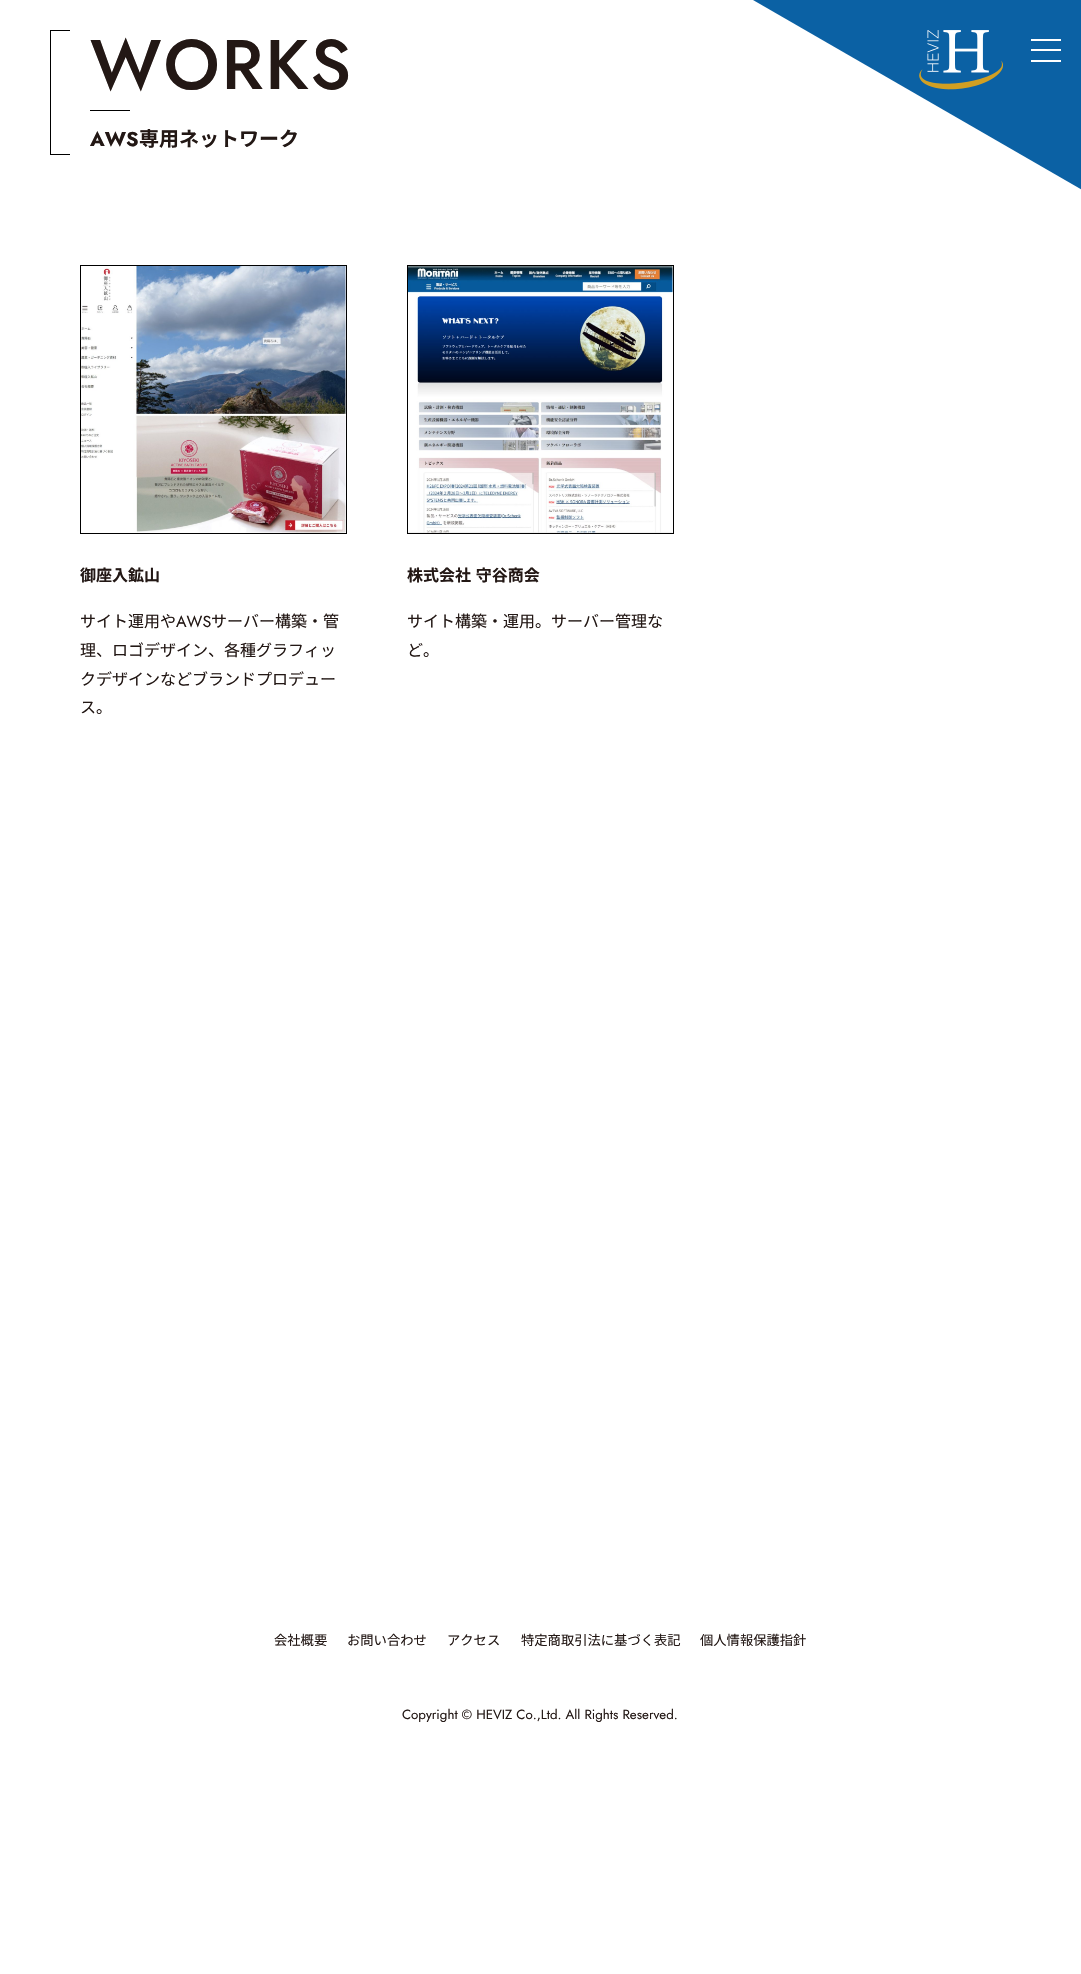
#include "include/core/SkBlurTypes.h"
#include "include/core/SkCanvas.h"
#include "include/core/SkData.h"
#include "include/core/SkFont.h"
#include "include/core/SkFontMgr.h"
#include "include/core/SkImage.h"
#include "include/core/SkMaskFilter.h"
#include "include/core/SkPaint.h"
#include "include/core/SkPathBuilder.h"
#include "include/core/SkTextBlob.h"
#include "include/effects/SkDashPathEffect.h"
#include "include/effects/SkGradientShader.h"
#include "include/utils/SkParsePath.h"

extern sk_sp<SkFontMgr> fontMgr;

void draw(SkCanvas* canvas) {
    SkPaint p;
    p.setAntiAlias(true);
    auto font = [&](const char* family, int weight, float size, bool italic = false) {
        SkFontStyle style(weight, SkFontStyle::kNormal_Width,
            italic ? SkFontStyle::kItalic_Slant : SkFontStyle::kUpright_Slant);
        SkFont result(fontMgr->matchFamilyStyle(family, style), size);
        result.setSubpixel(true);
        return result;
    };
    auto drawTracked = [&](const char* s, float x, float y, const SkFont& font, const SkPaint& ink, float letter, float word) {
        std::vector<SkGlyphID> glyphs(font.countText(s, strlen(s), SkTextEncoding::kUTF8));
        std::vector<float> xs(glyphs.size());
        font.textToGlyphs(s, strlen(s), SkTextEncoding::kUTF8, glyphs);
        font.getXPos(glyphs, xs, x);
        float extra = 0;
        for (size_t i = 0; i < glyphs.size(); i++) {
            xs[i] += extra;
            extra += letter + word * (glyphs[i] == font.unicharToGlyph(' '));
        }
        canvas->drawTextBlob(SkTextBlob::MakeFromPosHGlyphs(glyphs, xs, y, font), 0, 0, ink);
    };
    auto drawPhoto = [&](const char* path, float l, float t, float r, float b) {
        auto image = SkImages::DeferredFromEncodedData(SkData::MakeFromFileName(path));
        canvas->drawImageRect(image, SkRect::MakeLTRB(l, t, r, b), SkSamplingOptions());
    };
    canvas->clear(0xFFFFFFFF);
    {
        const struct { float l, t, r, b; SkColor color; } items[] = {
            {50, 30, 70, 31, 0xFF000000},
            {50, 154, 70, 155, 0xFF000000},
            {50, 30, 51, 155, 0xFF000000},
        };
        for (auto [l, t, r, b, color] : items) {
            p.setColor(color);
            canvas->drawRect(SkRect::MakeLTRB(l, t, r, b), p);
        }
    }
    auto font1 = font("Jost", 500, 70);
    p.setColor(0xFF231815);
    drawTracked("WORKS", 90, 89, font1, p, 2, 0);
    p.setColor(0xFF000000);
    canvas->drawRect(SkRect::MakeLTRB(90, 110, 130, 111), p);
    auto font2 = font("Jost", 700, 20);
    p.setColor(0xFF231815);
    canvas->drawString("AWS", 90, 146, font2, p);
    auto font3 = font("Noto Sans JP", 700, 20);
    canvas->drawString("専用ネットワーク", 139, 146, font3, p);
    p.setStyle(SkPaint::kStroke_Style);
    p.setStrokeWidth(1);
    p.setColor(0xFF000000);
    canvas->drawRect(SkRect::MakeLTRB(80.5f, 265.5f, 346.5f, 533.5f), p);
    drawPhoto("media/1.png", 81, 266, 346, 533);
    auto font4 = font("Noto Sans JP", 700, 16);
    p.setStyle(SkPaint::kFill_Style);
    p.setColor(0xFF231815);
    canvas->drawString("御座入鉱山", 80, 581, font4, p);
    auto font5 = font("Noto Sans JP", 400, 16);
    canvas->drawString("サイト運用や", 80, 627, font5, p);
    auto font6 = font("Jost", 400, 16);
    canvas->drawString("AWS", 176, 627, font6, p);
    {
        const struct { const char* s; float x, y; } items[] = {
            {"サーバー構築・管", 211, 627},
            {"理、ロゴデザイン、各種グラフィッ", 80, 656},
            {"クデザインなどブランドプロデュー", 80, 685},
            {"ス。", 80, 713},
        };
        for (auto [s, x, y] : items) {
            canvas->drawString(s, x, y, font5, p);
        }
    }
    p.setStyle(SkPaint::kStroke_Style);
    p.setColor(0xFF000000);
    canvas->drawRect(SkRect::MakeLTRB(407.5f, 265.5f, 673.5f, 533.5f), p);
    drawPhoto("media/2.png", 408, 266, 673, 533);
    p.setStyle(SkPaint::kFill_Style);
    p.setColor(0xFF231815);
    drawTracked("株式会社 守谷商会", 407, 581, font4, p, 0, 1);
    canvas->drawString("サイト構築・運用。サーバー管理な", 407, 627, font5, p);
    canvas->drawString("ど。", 407, 656, font5, p);
    p.setColor(0xFF0B61A4);
    canvas->drawPath(SkPathBuilder().moveTo(769, -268).lineTo(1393, 92).lineTo(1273, 300).lineTo(649, -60).close().detach(), p);
    drawPhoto("media/3.png", 919, 30, 1003, 90);
    {
        const struct { float l, t, r, b; SkColor color; } items[] = {
            {1031, 39, 1061, 41, 0xFFFFFFFF},
            {1031, 49, 1061, 51, 0xFFFFFFFF},
            {1031, 60, 1061, 62, 0xFFFFFFFF},
        };
        for (auto [l, t, r, b, color] : items) {
            p.setColor(color);
            canvas->drawRect(SkRect::MakeLTRB(l, t, r, b), p);
        }
    }
    auto font7 = font("Noto Sans JP", 400, 13.3f);
    p.setColor(0xFF231815);
    {
        const struct { const char* s; float x, y; } items[] = {
            {"会社概要", 274, 1645},
            {"お問い合わせ", 347, 1645},
            {"アクセス", 447, 1645},
            {"特定商取引法に基づく表記", 521, 1645},
            {"個人情報保護指針", 700, 1645},
        };
        for (auto [s, x, y] : items) {
            canvas->drawString(s, x, y, font7, p);
        }
    }
    auto font8 = font("Jost", 400, 13.3f);
    canvas->drawString("Copyright © HEVIZ Co.,Ltd. All Rights Reserved.", 402, 1719, font8, p);
}
